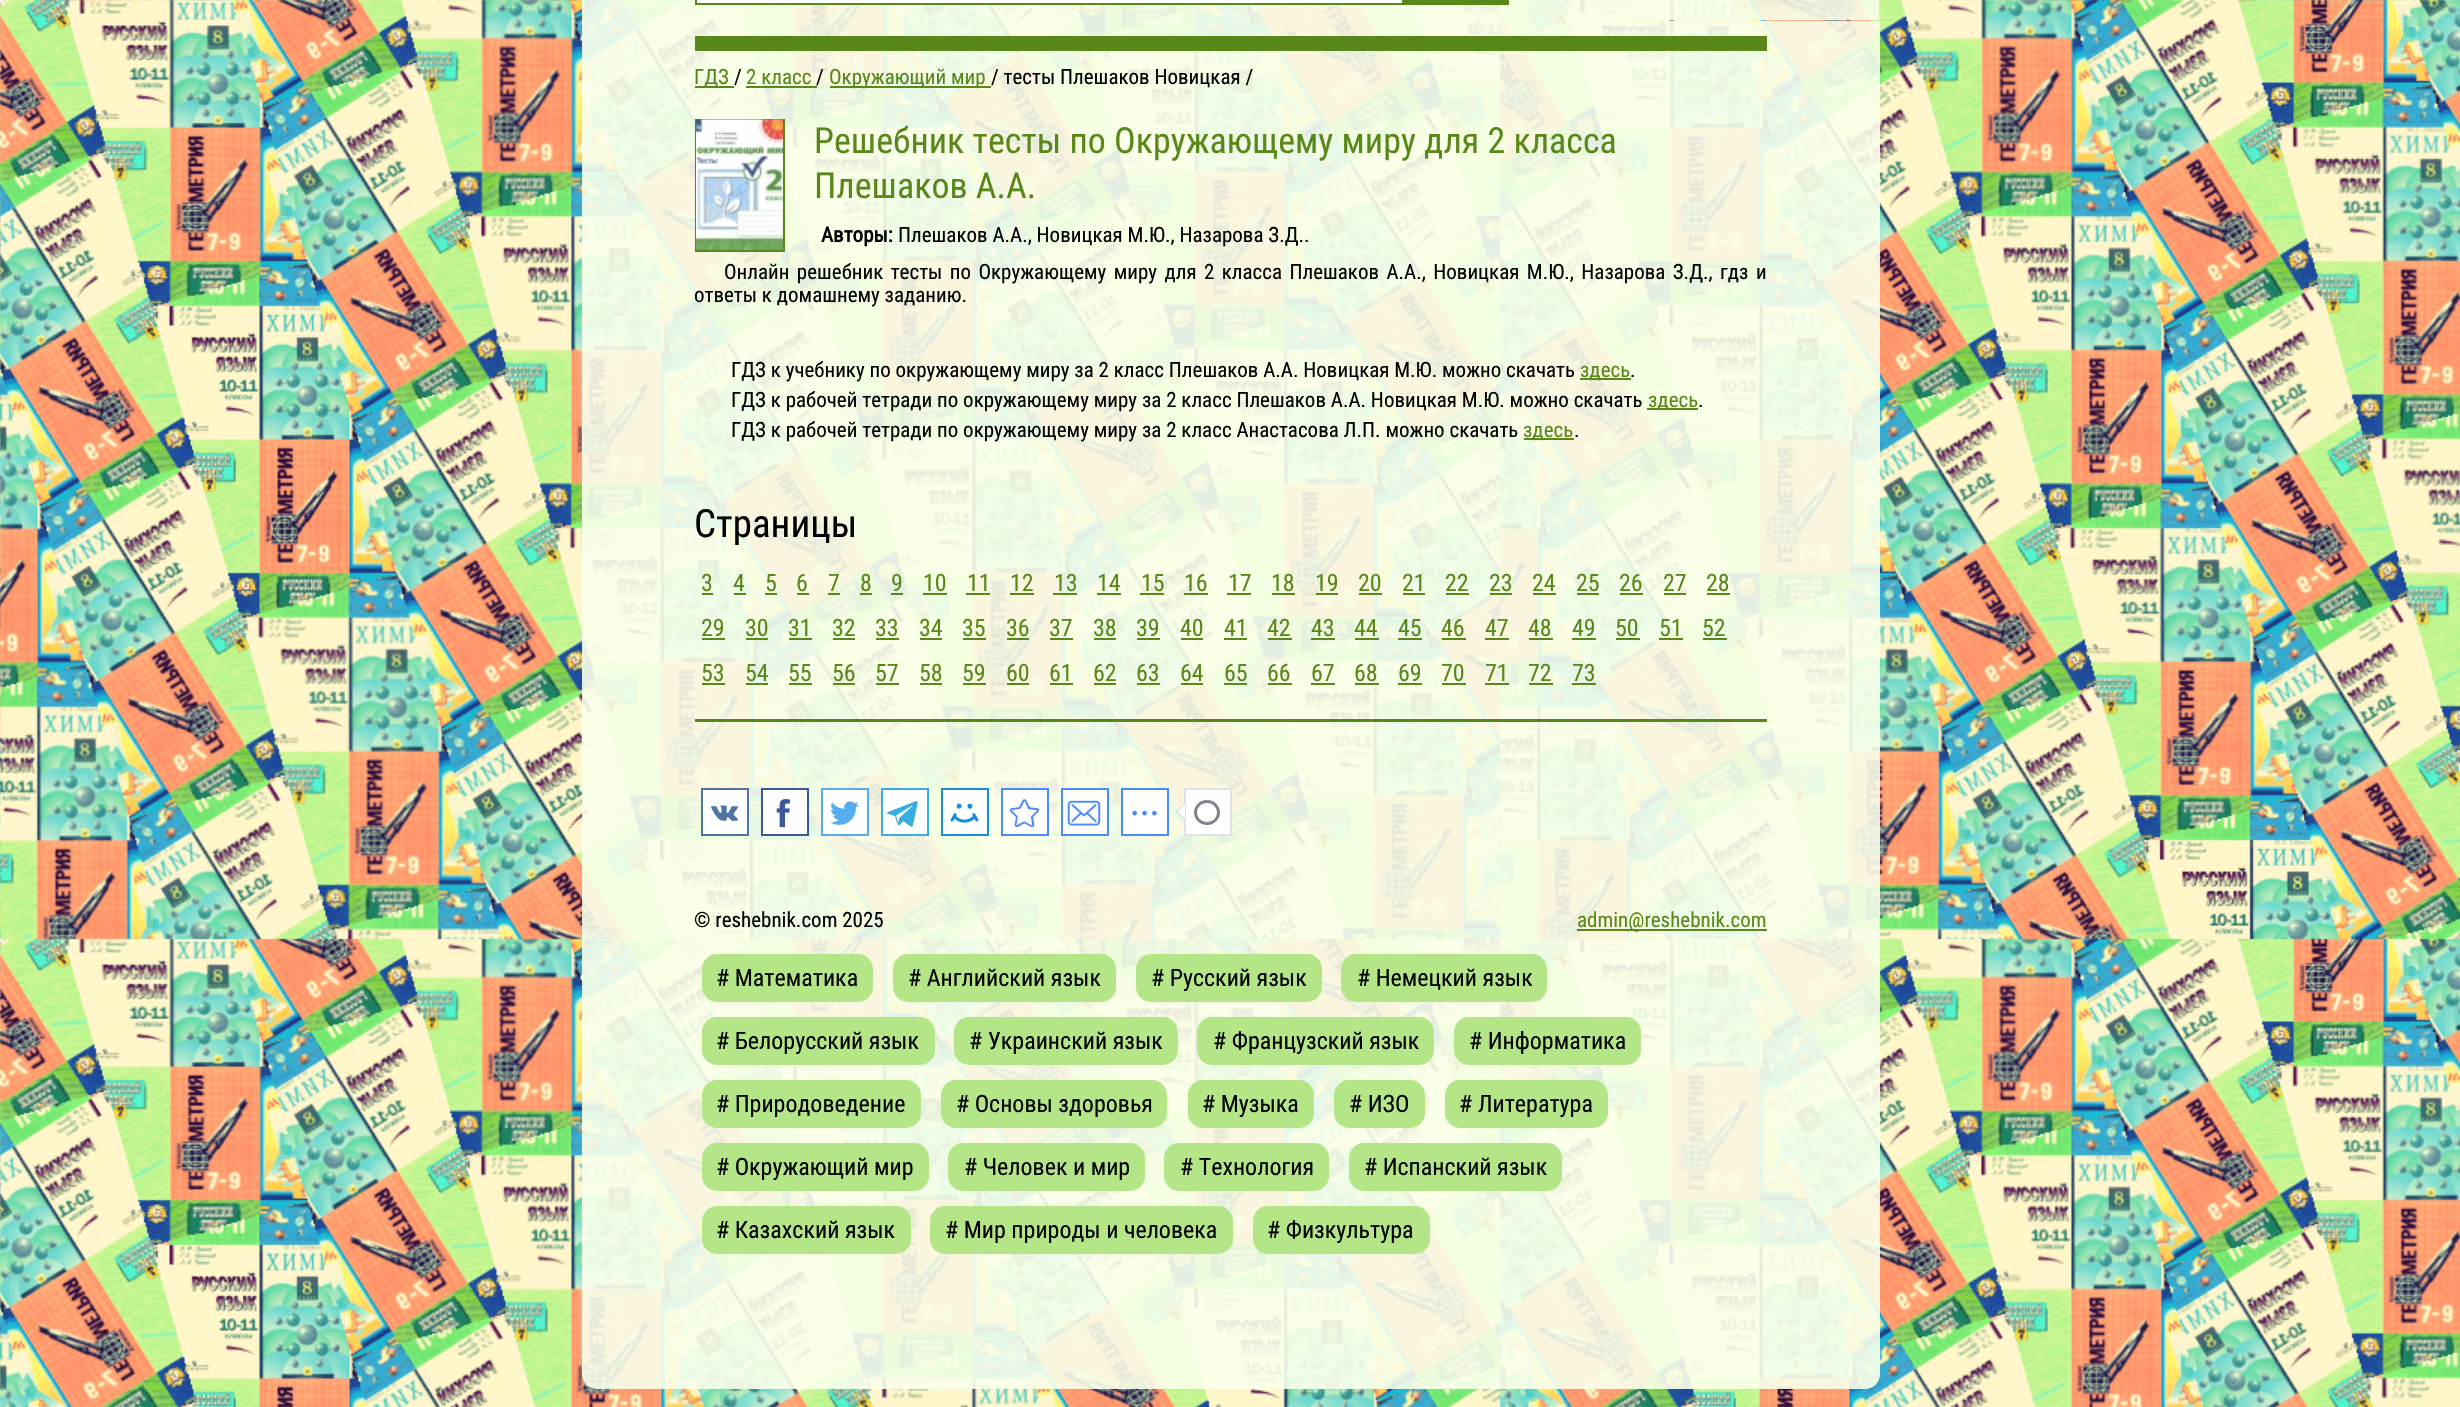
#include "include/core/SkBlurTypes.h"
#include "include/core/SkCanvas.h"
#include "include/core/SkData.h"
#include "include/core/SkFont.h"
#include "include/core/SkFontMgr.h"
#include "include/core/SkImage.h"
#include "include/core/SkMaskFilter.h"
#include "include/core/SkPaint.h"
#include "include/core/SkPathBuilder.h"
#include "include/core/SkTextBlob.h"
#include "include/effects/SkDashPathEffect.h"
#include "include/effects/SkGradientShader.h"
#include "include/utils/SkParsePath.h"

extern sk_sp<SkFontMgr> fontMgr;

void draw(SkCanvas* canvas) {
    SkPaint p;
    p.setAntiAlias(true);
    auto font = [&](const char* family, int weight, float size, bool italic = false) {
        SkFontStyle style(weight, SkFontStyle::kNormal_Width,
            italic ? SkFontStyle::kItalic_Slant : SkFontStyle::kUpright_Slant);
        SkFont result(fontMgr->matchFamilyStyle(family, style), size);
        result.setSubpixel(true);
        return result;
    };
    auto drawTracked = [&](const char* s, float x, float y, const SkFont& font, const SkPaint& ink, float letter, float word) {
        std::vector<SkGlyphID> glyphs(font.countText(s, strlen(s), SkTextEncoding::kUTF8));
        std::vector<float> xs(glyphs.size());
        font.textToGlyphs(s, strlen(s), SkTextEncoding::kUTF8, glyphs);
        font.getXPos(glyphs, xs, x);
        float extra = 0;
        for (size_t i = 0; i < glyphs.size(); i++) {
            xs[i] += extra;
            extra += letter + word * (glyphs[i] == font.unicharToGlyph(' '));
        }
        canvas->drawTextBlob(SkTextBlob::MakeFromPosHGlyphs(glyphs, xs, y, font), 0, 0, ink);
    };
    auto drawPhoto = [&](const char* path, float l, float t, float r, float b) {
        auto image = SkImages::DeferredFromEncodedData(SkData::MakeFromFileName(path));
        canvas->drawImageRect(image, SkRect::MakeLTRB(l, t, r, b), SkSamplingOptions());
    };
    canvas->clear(0xFFFFFFFF);
    drawPhoto("media/1.png", 0, 0, 2460, 1407);
    drawPhoto("media/2.png", 1621, 0, 1880, 21);
    p.setColor(0xE6F9FFEA);
    canvas->drawRect(SkRect::MakeLTRB(582, 0, 1622, 21), p);
    p.setColor(0xFFFFFFFF);
    canvas->drawRect(SkRect::MakeLTRB(696, -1, 1403, 4), p);
    p.setStyle(SkPaint::kStroke_Style);
    p.setStrokeWidth(2);
    p.setColor(0xFF59871A);
    canvas->drawRect(SkRect::MakeLTRB(696, -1, 1403, 4), p);
    p.setStyle(SkPaint::kFill_Style);
    canvas->drawRect(SkRect::MakeLTRB(1404, 0, 1509, 5), p);
    p.setColor(0xE6F9FFEA);
    canvas->drawPath(SkPathBuilder().moveTo(582, 21).lineTo(1880, 21).lineTo(1880, 1374).cubicTo(1880, 1382.5f, 1873.5f, 1389, 1865, 1389).lineTo(597, 1389).cubicTo(588.5f, 1389, 582, 1382.5f, 582, 1374).close().detach(), p);
    p.setColor(0xFF59871A);
    canvas->drawRect(SkRect::MakeLTRB(695, 36, 1767, 51), p);
    canvas->drawRect(SkRect::MakeLTRB(695, 86, 734, 88), p);
    auto font1 = font("Roboto Condensed", 400, 21);
    canvas->drawString("ГДЗ", 694, 84, font1, p);
    p.setColor(0xFF000000);
    canvas->drawString("/", 734, 84, font1, p);
    p.setColor(0xFF59871A);
    canvas->drawString("2 класс", 746, 84, font1, p);
    canvas->drawRect(SkRect::MakeLTRB(746, 86, 817, 88), p);
    p.setColor(0xFF000000);
    canvas->drawString("/", 816, 84, font1, p);
    p.setColor(0xFF59871A);
    canvas->drawRect(SkRect::MakeLTRB(830, 86, 991, 88), p);
    canvas->drawString("Окружающий мир", 829, 84, font1, p);
    p.setColor(0xFF000000);
    canvas->drawString("/ тесты Плешаков Новицкая /", 991, 84, font1, p);
    p.setStyle(SkPaint::kStroke_Style);
    p.setColor(0xFF59871A);
    canvas->drawRect(SkRect::MakeLTRB(696, 120, 784, 251), p);
    drawPhoto("media/3.png", 696, 119, 783, 250);
    auto font2 = font("Roboto Condensed", 400, 36);
    p.setStyle(SkPaint::kFill_Style);
    canvas->drawString("Решебник тесты по Окружающему миру для 2 класса", 814, 153, font2, p);
    canvas->drawString("Плешаков А.А.", 814, 198, font2, p);
    auto font3 = font("Roboto Condensed", 700, 21);
    p.setColor(0xFF000000);
    canvas->drawString("Авторы:", 821, 242, font3, p);
    canvas->drawString("Плешаков А.А., Новицкая М.Ю., Назарова З.Д..", 898, 242, font1, p);
    drawTracked("Онлайн решебник тесты по Окружающему миру для 2 класса Плешаков А.А., Новицкая М.Ю., Назарова З.Д., гдз и", 724, 279, font1, p, 0, 2.6f);
    canvas->save();
    canvas->clipRect(SkRect::MakeLTRB(695, 119, 1767, 471));
    canvas->drawString("ответы к домашнему заданию.", 694, 302, font1, p);
    canvas->restore();
    canvas->drawString("ГДЗ к учебнику по окружающему миру за 2 класс Плешаков А.А. Новицкая М.Ю. можно скачать", 731, 377, font1, p);
    p.setColor(0xFF59871A);
    canvas->drawRect(SkRect::MakeLTRB(1580, 378, 1631, 380), p);
    canvas->drawString("здесь", 1580, 377, font1, p);
    p.setColor(0xFF000000);
    canvas->drawString(".", 1630, 377, font1, p);
    canvas->drawString("ГДЗ к рабочей тетради по окружающему миру за 2 класс Плешаков А.А. Новицкая М.Ю. можно скачать", 731, 407, font1, p);
    p.setColor(0xFF59871A);
    canvas->drawRect(SkRect::MakeLTRB(1647, 408, 1698, 410), p);
    canvas->drawString("здесь", 1648, 407, font1, p);
    p.setColor(0xFF000000);
    canvas->drawString(".", 1698, 407, font1, p);
    canvas->drawString("ГДЗ к рабочей тетради по окружающему миру за 2 класс Анастасова Л.П. можно скачать", 731, 437, font1, p);
    p.setColor(0xFF59871A);
    canvas->drawRect(SkRect::MakeLTRB(1524, 438, 1574, 440), p);
    canvas->drawString("здесь", 1523, 437, font1, p);
    p.setColor(0xFF000000);
    canvas->drawString(".", 1574, 437, font1, p);
    p.setColor(0xFF59871A);
    canvas->drawRect(SkRect::MakeLTRB(695, 719, 1767, 722), p);
    auto font4 = font("Roboto Condensed", 400, 39);
    p.setColor(0xFF000000);
    canvas->drawString("Страницы", 694, 537, font4, p);
    auto font5 = font("Roboto Condensed", 400, 24);
    p.setColor(0xFF59871A);
    canvas->drawString("3", 701, 591, font5, p);
    canvas->drawRect(SkRect::MakeLTRB(702, 593, 713, 595), p);
    canvas->drawString("4", 733, 591, font5, p);
    canvas->drawRect(SkRect::MakeLTRB(734, 593, 746, 595), p);
    canvas->drawString("5", 765, 591, font5, p);
    canvas->drawRect(SkRect::MakeLTRB(765, 593, 777, 595), p);
    canvas->drawString("6", 796, 591, font5, p);
    canvas->drawRect(SkRect::MakeLTRB(797, 593, 809, 595), p);
    canvas->drawString("7", 828, 591, font5, p);
    canvas->drawRect(SkRect::MakeLTRB(828, 593, 840, 595), p);
    canvas->drawString("8", 860, 591, font5, p);
    canvas->drawRect(SkRect::MakeLTRB(860, 593, 872, 595), p);
    canvas->drawString("9", 891, 591, font5, p);
    canvas->drawRect(SkRect::MakeLTRB(891, 593, 903, 595), p);
    canvas->drawString("10", 923, 591, font5, p);
    canvas->drawRect(SkRect::MakeLTRB(923, 593, 947, 595), p);
    canvas->drawString("11", 967, 591, font5, p);
    canvas->drawRect(SkRect::MakeLTRB(966, 593, 990, 595), p);
    canvas->drawString("12", 1010, 591, font5, p);
    canvas->drawRect(SkRect::MakeLTRB(1010, 593, 1034, 595), p);
    canvas->drawString("13", 1054, 591, font5, p);
    canvas->drawRect(SkRect::MakeLTRB(1053, 593, 1077, 595), p);
    canvas->drawString("14", 1097, 591, font5, p);
    canvas->drawRect(SkRect::MakeLTRB(1097, 593, 1121, 595), p);
    canvas->drawString("15", 1141, 591, font5, p);
    canvas->drawRect(SkRect::MakeLTRB(1140, 593, 1164, 595), p);
    canvas->drawString("16", 1184, 591, font5, p);
    canvas->drawRect(SkRect::MakeLTRB(1184, 593, 1208, 595), p);
    canvas->drawString("17", 1228, 591, font5, p);
    canvas->drawRect(SkRect::MakeLTRB(1227, 593, 1251, 595), p);
    canvas->drawString("18", 1271, 591, font5, p);
    canvas->drawRect(SkRect::MakeLTRB(1272, 593, 1295, 595), p);
    canvas->drawString("19", 1315, 591, font5, p);
    canvas->drawRect(SkRect::MakeLTRB(1316, 593, 1338, 595), p);
    canvas->drawString("20", 1358, 591, font5, p);
    canvas->drawRect(SkRect::MakeLTRB(1359, 593, 1382, 595), p);
    canvas->drawString("21", 1402, 591, font5, p);
    canvas->drawRect(SkRect::MakeLTRB(1403, 593, 1425, 595), p);
    canvas->drawString("22", 1445, 591, font5, p);
    canvas->drawRect(SkRect::MakeLTRB(1446, 593, 1469, 595), p);
    canvas->drawString("23", 1489, 591, font5, p);
    canvas->drawRect(SkRect::MakeLTRB(1490, 593, 1512, 595), p);
    canvas->drawString("24", 1532, 591, font5, p);
    canvas->drawRect(SkRect::MakeLTRB(1533, 593, 1556, 595), p);
    canvas->drawString("25", 1576, 591, font5, p);
    canvas->drawRect(SkRect::MakeLTRB(1577, 593, 1599, 595), p);
    canvas->drawString("26", 1619, 591, font5, p);
    canvas->drawRect(SkRect::MakeLTRB(1620, 593, 1643, 595), p);
    canvas->drawString("27", 1663, 591, font5, p);
    canvas->drawRect(SkRect::MakeLTRB(1664, 593, 1686, 595), p);
    canvas->drawString("28", 1706, 591, font5, p);
    canvas->drawRect(SkRect::MakeLTRB(1707, 593, 1730, 595), p);
    canvas->drawString("29", 701, 636, font5, p);
    canvas->drawRect(SkRect::MakeLTRB(702, 638, 725, 640), p);
    canvas->drawString("30", 745, 636, font5, p);
    canvas->drawRect(SkRect::MakeLTRB(746, 638, 768, 640), p);
    canvas->drawString("31", 788, 636, font5, p);
    canvas->drawRect(SkRect::MakeLTRB(789, 638, 812, 640), p);
    canvas->drawString("32", 832, 636, font5, p);
    canvas->drawRect(SkRect::MakeLTRB(833, 638, 855, 640), p);
    canvas->drawString("33", 875, 636, font5, p);
    canvas->drawRect(SkRect::MakeLTRB(876, 638, 899, 640), p);
    canvas->drawString("34", 919, 636, font5, p);
    canvas->drawRect(SkRect::MakeLTRB(920, 638, 942, 640), p);
    canvas->drawString("35", 962, 636, font5, p);
    canvas->drawRect(SkRect::MakeLTRB(963, 638, 986, 640), p);
    canvas->drawString("36", 1006, 636, font5, p);
    canvas->drawRect(SkRect::MakeLTRB(1007, 638, 1029, 640), p);
    canvas->drawString("37", 1049, 636, font5, p);
    canvas->drawRect(SkRect::MakeLTRB(1050, 638, 1073, 640), p);
    canvas->drawString("38", 1093, 636, font5, p);
    canvas->drawRect(SkRect::MakeLTRB(1094, 638, 1116, 640), p);
    canvas->drawString("39", 1136, 636, font5, p);
    canvas->drawRect(SkRect::MakeLTRB(1137, 638, 1160, 640), p);
    canvas->drawString("40", 1180, 636, font5, p);
    canvas->drawRect(SkRect::MakeLTRB(1181, 638, 1203, 640), p);
    canvas->drawString("41", 1224, 636, font5, p);
    canvas->drawRect(SkRect::MakeLTRB(1224, 638, 1247, 640), p);
    canvas->drawString("42", 1267, 636, font5, p);
    canvas->drawRect(SkRect::MakeLTRB(1268, 638, 1292, 640), p);
    canvas->drawString("43", 1311, 636, font5, p);
    canvas->drawRect(SkRect::MakeLTRB(1311, 638, 1335, 640), p);
    canvas->drawString("44", 1354, 636, font5, p);
    canvas->drawRect(SkRect::MakeLTRB(1355, 638, 1379, 640), p);
    canvas->drawString("45", 1398, 636, font5, p);
    canvas->drawRect(SkRect::MakeLTRB(1398, 638, 1422, 640), p);
    canvas->drawString("46", 1441, 636, font5, p);
    canvas->drawRect(SkRect::MakeLTRB(1442, 638, 1466, 640), p);
    canvas->drawString("47", 1485, 636, font5, p);
    canvas->drawRect(SkRect::MakeLTRB(1485, 638, 1509, 640), p);
    canvas->drawString("48", 1528, 636, font5, p);
    canvas->drawRect(SkRect::MakeLTRB(1529, 638, 1553, 640), p);
    canvas->drawString("49", 1572, 636, font5, p);
    canvas->drawRect(SkRect::MakeLTRB(1572, 638, 1596, 640), p);
    canvas->drawString("50", 1615, 636, font5, p);
    canvas->drawRect(SkRect::MakeLTRB(1616, 638, 1640, 640), p);
    canvas->drawString("51", 1659, 636, font5, p);
    canvas->drawRect(SkRect::MakeLTRB(1659, 638, 1683, 640), p);
    canvas->drawString("52", 1702, 636, font5, p);
    canvas->drawRect(SkRect::MakeLTRB(1703, 638, 1727, 640), p);
    canvas->drawString("53", 701, 681, font5, p);
    canvas->drawRect(SkRect::MakeLTRB(702, 683, 725, 685), p);
    canvas->drawString("54", 745, 681, font5, p);
    canvas->drawRect(SkRect::MakeLTRB(746, 683, 768, 685), p);
    canvas->drawString("55", 788, 681, font5, p);
    canvas->drawRect(SkRect::MakeLTRB(789, 683, 812, 685), p);
    canvas->drawString("56", 832, 681, font5, p);
    canvas->drawRect(SkRect::MakeLTRB(833, 683, 855, 685), p);
    canvas->drawString("57", 875, 681, font5, p);
    canvas->drawRect(SkRect::MakeLTRB(876, 683, 899, 685), p);
    canvas->drawString("58", 919, 681, font5, p);
    canvas->drawRect(SkRect::MakeLTRB(920, 683, 942, 685), p);
    canvas->drawString("59", 962, 681, font5, p);
    canvas->drawRect(SkRect::MakeLTRB(963, 683, 986, 685), p);
    canvas->drawString("60", 1006, 681, font5, p);
    canvas->drawRect(SkRect::MakeLTRB(1007, 683, 1029, 685), p);
    canvas->drawString("61", 1049, 681, font5, p);
    canvas->drawRect(SkRect::MakeLTRB(1050, 683, 1073, 685), p);
    canvas->drawString("62", 1093, 681, font5, p);
    canvas->drawRect(SkRect::MakeLTRB(1094, 683, 1116, 685), p);
    canvas->drawString("63", 1136, 681, font5, p);
    canvas->drawRect(SkRect::MakeLTRB(1137, 683, 1160, 685), p);
    canvas->drawString("64", 1180, 681, font5, p);
    canvas->drawRect(SkRect::MakeLTRB(1181, 683, 1203, 685), p);
    canvas->drawString("65", 1224, 681, font5, p);
    canvas->drawRect(SkRect::MakeLTRB(1224, 683, 1247, 685), p);
    canvas->drawString("66", 1267, 681, font5, p);
    canvas->drawRect(SkRect::MakeLTRB(1268, 683, 1292, 685), p);
    canvas->drawString("67", 1311, 681, font5, p);
    canvas->drawRect(SkRect::MakeLTRB(1311, 683, 1335, 685), p);
    canvas->drawString("68", 1354, 681, font5, p);
    canvas->drawRect(SkRect::MakeLTRB(1355, 683, 1379, 685), p);
    canvas->drawString("69", 1398, 681, font5, p);
    canvas->drawRect(SkRect::MakeLTRB(1398, 683, 1422, 685), p);
    canvas->drawString("70", 1441, 681, font5, p);
    canvas->drawRect(SkRect::MakeLTRB(1442, 683, 1466, 685), p);
    canvas->drawString("71", 1485, 681, font5, p);
    canvas->drawRect(SkRect::MakeLTRB(1485, 683, 1509, 685), p);
    canvas->drawString("72", 1528, 681, font5, p);
    canvas->drawRect(SkRect::MakeLTRB(1529, 683, 1553, 685), p);
    canvas->drawString("73", 1572, 681, font5, p);
    canvas->drawRect(SkRect::MakeLTRB(1572, 683, 1596, 685), p);
    p.setColor(0xFFFFFFFF);
    canvas->drawRect(SkRect::MakeLTRB(702, 789, 748, 835), p);
    p.setStyle(SkPaint::kStroke_Style);
    p.setColor(0xFF4D75A3);
    canvas->drawRect(SkRect::MakeLTRB(702, 789, 748, 835), p);
    drawPhoto("media/4.png", 711, 805, 738, 821);
    p.setStyle(SkPaint::kFill_Style);
    p.setColor(0xFFFFFFFF);
    canvas->drawRect(SkRect::MakeLTRB(762, 789, 808, 835), p);
    p.setStyle(SkPaint::kStroke_Style);
    p.setColor(0xFF3B5998);
    canvas->drawRect(SkRect::MakeLTRB(762, 789, 808, 835), p);
    drawPhoto("media/5.png", 776, 799, 791, 828);
    p.setStyle(SkPaint::kFill_Style);
    p.setColor(0xFFFFFFFF);
    canvas->drawRect(SkRect::MakeLTRB(822, 789, 868, 835), p);
    p.setStyle(SkPaint::kStroke_Style);
    p.setColor(0xFF55ACEE);
    canvas->drawRect(SkRect::MakeLTRB(822, 789, 868, 835), p);
    drawPhoto("media/6.png", 830, 801, 859, 825);
    p.setStyle(SkPaint::kFill_Style);
    p.setColor(0xFFFFFFFF);
    canvas->drawRect(SkRect::MakeLTRB(882, 789, 928, 835), p);
    p.setStyle(SkPaint::kStroke_Style);
    p.setColor(0xFF37AEE2);
    canvas->drawRect(SkRect::MakeLTRB(882, 789, 928, 835), p);
    drawPhoto("media/7.png", 887, 801, 918, 827);
    p.setStyle(SkPaint::kFill_Style);
    p.setColor(0xFFFFFFFF);
    canvas->drawRect(SkRect::MakeLTRB(942, 789, 988, 835), p);
    p.setStyle(SkPaint::kStroke_Style);
    p.setColor(0xFF168DE2);
    canvas->drawRect(SkRect::MakeLTRB(942, 789, 988, 835), p);
    drawPhoto("media/8.png", 950, 803, 979, 823);
    p.setStyle(SkPaint::kFill_Style);
    p.setColor(0xFFFFFFFF);
    canvas->drawRect(SkRect::MakeLTRB(1002, 789, 1048, 835), p);
    p.setStyle(SkPaint::kStroke_Style);
    p.setColor(0xFF498BFA);
    canvas->drawRect(SkRect::MakeLTRB(1002, 789, 1048, 835), p);
    drawPhoto("media/9.png", 1009, 799, 1040, 828);
    p.setStyle(SkPaint::kFill_Style);
    p.setColor(0xFFFFFFFF);
    canvas->drawRect(SkRect::MakeLTRB(1062, 789, 1108, 835), p);
    p.setStyle(SkPaint::kStroke_Style);
    p.setColor(0xFF498BFA);
    canvas->drawRect(SkRect::MakeLTRB(1062, 789, 1108, 835), p);
    drawPhoto("media/10.png", 1067, 800, 1101, 826);
    p.setStyle(SkPaint::kFill_Style);
    p.setColor(0xFFFFFFFF);
    canvas->drawRect(SkRect::MakeLTRB(1122, 789, 1168, 835), p);
    p.setStyle(SkPaint::kStroke_Style);
    p.setColor(0xFF498BFA);
    canvas->drawRect(SkRect::MakeLTRB(1122, 789, 1168, 835), p);
    drawPhoto("media/11.png", 1132, 810, 1157, 816);
    p.setStyle(SkPaint::kFill_Style);
    p.setColor(0xFFFFFFFF);
    canvas->drawRect(SkRect::MakeLTRB(1185, 789, 1231, 835), p);
    p.setStyle(SkPaint::kStroke_Style);
    p.setColor(0xFFE0E2E6);
    canvas->drawRect(SkRect::MakeLTRB(1185, 789, 1231, 835), p);
    p.setStyle(SkPaint::kFill_Style);
    p.setColor(0xFFD8DCDE);
    canvas->drawPath(SkPathBuilder().moveTo(1185, 802.5f).lineTo(1185, 820.5f).lineTo(1176, 811.5f).close().detach(), p);
    p.setStyle(SkPaint::kStroke_Style);
    p.setStrokeWidth(3);
    p.setColor(0xFF81858B);
    canvas->drawRoundRect(SkRect::MakeLTRB(1195.5f, 801.5f, 1218.5f, 823.5f), 11, 11, p);
    p.setStyle(SkPaint::kFill_Style);
    p.setColor(0xFFFFFFFF);
    canvas->drawPath(SkPathBuilder().moveTo(1185, 804).lineTo(1185, 819).lineTo(1177.5f, 811.5f).close().detach(), p);
    p.setColor(0xFF000000);
    canvas->drawString("© reshebnik.com 2025", 694, 927, font1, p);
    p.setColor(0xFF59871A);
    canvas->drawRect(SkRect::MakeLTRB(1577, 929, 1767, 931), p);
    canvas->drawString("admin@reshebnik.com", 1577, 927, font1, p);
    p.setColor(0xFFB4E687);
    canvas->drawRoundRect(SkRect::MakeLTRB(702, 954, 873, 1002), 15, 15, p);
    p.setColor(0xFF000000);
    canvas->drawString("# Математика", 716, 986, font5, p);
    p.setColor(0xFFB4E687);
    canvas->drawRoundRect(SkRect::MakeLTRB(893, 954, 1116, 1002), 15, 15, p);
    p.setColor(0xFF000000);
    canvas->drawString("# Английский язык", 908, 986, font5, p);
    p.setColor(0xFFB4E687);
    canvas->drawRoundRect(SkRect::MakeLTRB(1136, 954, 1322, 1002), 15, 15, p);
    p.setColor(0xFF000000);
    canvas->drawString("# Русский язык", 1151, 986, font5, p);
    p.setColor(0xFFB4E687);
    canvas->drawRoundRect(SkRect::MakeLTRB(1341, 954, 1547, 1002), 15, 15, p);
    p.setColor(0xFF000000);
    canvas->drawString("# Немецкий язык", 1357, 986, font5, p);
    p.setColor(0xFFB4E687);
    canvas->drawRoundRect(SkRect::MakeLTRB(702, 1017, 935, 1065), 15, 15, p);
    p.setColor(0xFF000000);
    canvas->drawString("# Белорусский язык", 716, 1049, font5, p);
    p.setColor(0xFFB4E687);
    canvas->drawRoundRect(SkRect::MakeLTRB(954, 1017, 1178, 1065), 15, 15, p);
    p.setColor(0xFF000000);
    canvas->drawString("# Украинский язык", 969, 1049, font5, p);
    p.setColor(0xFFB4E687);
    canvas->drawRoundRect(SkRect::MakeLTRB(1197, 1017, 1434, 1065), 15, 15, p);
    p.setColor(0xFF000000);
    canvas->drawString("# Французский язык", 1213, 1049, font5, p);
    p.setColor(0xFFB4E687);
    canvas->drawRoundRect(SkRect::MakeLTRB(1454, 1017, 1641, 1065), 15, 15, p);
    p.setColor(0xFF000000);
    canvas->drawString("# Информатика", 1469, 1049, font5, p);
    p.setColor(0xFFB4E687);
    canvas->drawRoundRect(SkRect::MakeLTRB(702, 1080, 921, 1128), 15, 15, p);
    p.setColor(0xFF000000);
    canvas->drawString("# Природоведение", 716, 1112, font5, p);
    p.setColor(0xFFB4E687);
    canvas->drawRoundRect(SkRect::MakeLTRB(941, 1080, 1167, 1128), 15, 15, p);
    p.setColor(0xFF000000);
    canvas->drawString("# Основы здоровья", 956, 1112, font5, p);
    p.setColor(0xFFB4E687);
    canvas->drawRoundRect(SkRect::MakeLTRB(1188, 1080, 1314, 1128), 15, 15, p);
    p.setColor(0xFF000000);
    canvas->drawString("# Музыка", 1202, 1112, font5, p);
    p.setColor(0xFFB4E687);
    canvas->drawRoundRect(SkRect::MakeLTRB(1334, 1080, 1425, 1128), 15, 15, p);
    p.setColor(0xFF000000);
    canvas->drawString("# ИЗО", 1349, 1112, font5, p);
    p.setColor(0xFFB4E687);
    canvas->drawRoundRect(SkRect::MakeLTRB(1445, 1080, 1608, 1128), 15, 15, p);
    p.setColor(0xFF000000);
    canvas->drawString("# Литература", 1459, 1112, font5, p);
    p.setColor(0xFFB4E687);
    canvas->drawRoundRect(SkRect::MakeLTRB(702, 1143, 929, 1191), 15, 15, p);
    p.setColor(0xFF000000);
    canvas->drawString("# Окружающий мир", 716, 1175, font5, p);
    p.setColor(0xFFB4E687);
    canvas->drawRoundRect(SkRect::MakeLTRB(948, 1143, 1145, 1191), 15, 15, p);
    p.setColor(0xFF000000);
    canvas->drawString("# Человек и мир", 964, 1175, font5, p);
    p.setColor(0xFFB4E687);
    canvas->drawRoundRect(SkRect::MakeLTRB(1164, 1143, 1329, 1191), 15, 15, p);
    p.setColor(0xFF000000);
    canvas->drawString("# Технология", 1180, 1175, font5, p);
    p.setColor(0xFFB4E687);
    canvas->drawRoundRect(SkRect::MakeLTRB(1349, 1143, 1562, 1191), 15, 15, p);
    p.setColor(0xFF000000);
    canvas->drawString("# Испанский язык", 1364, 1175, font5, p);
    p.setColor(0xFFB4E687);
    canvas->drawRoundRect(SkRect::MakeLTRB(702, 1206, 911, 1254), 15, 15, p);
    p.setColor(0xFF000000);
    canvas->drawString("# Казахский язык", 716, 1238, font5, p);
    p.setColor(0xFFB4E687);
    canvas->drawRoundRect(SkRect::MakeLTRB(930, 1206, 1233, 1254), 15, 15, p);
    p.setColor(0xFF000000);
    canvas->drawString("# Мир природы и человека", 945, 1238, font5, p);
    p.setColor(0xFFB4E687);
    canvas->drawRoundRect(SkRect::MakeLTRB(1253, 1206, 1430, 1254), 15, 15, p);
    p.setColor(0xFF000000);
    canvas->drawString("# Физкультура", 1267, 1238, font5, p);
}
